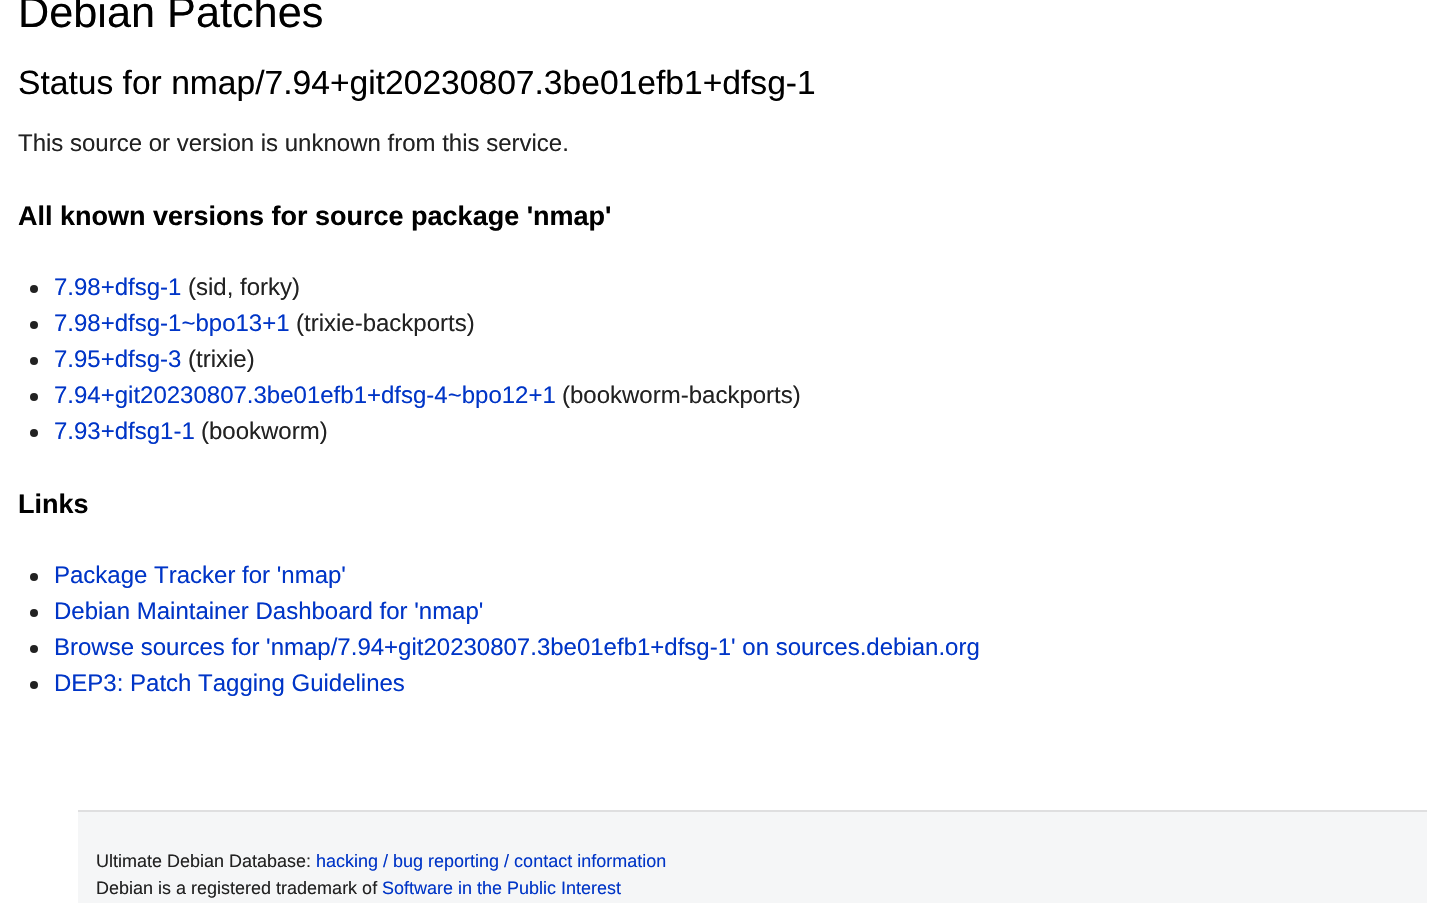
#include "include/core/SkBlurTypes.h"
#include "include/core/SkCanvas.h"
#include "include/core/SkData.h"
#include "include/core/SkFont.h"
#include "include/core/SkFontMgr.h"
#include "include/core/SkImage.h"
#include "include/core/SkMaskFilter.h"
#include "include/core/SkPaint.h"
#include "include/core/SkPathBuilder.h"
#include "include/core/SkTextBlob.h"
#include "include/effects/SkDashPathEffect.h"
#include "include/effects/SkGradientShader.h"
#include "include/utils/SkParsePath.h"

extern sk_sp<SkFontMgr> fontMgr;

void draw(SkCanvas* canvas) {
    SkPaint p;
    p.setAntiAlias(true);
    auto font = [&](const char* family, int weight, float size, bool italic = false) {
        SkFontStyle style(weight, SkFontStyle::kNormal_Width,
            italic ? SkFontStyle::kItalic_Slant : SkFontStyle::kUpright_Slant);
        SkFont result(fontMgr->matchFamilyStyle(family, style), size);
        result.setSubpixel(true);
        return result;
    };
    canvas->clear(0xFFFFFFFF);
    auto font1 = font("Liberation Sans", 400, 43.25f);
    p.setColor(0xFF000000);
    canvas->drawString("Debian Patches", 18, 27, font1, p);
    auto font2 = font("Liberation Sans", 400, 33.6f);
    canvas->drawString("Status for nmap/7.94+git20230807.3be01efb1+dfsg-1", 18, 94, font2, p);
    auto font3 = font("Liberation Sans", 400, 24);
    p.setColor(0xFF222222);
    canvas->drawString("This source or version is unknown from this service.", 18, 151, font3, p);
    auto font4 = font("Liberation Sans", 700, 27);
    p.setColor(0xFF000000);
    canvas->drawString("All known versions for source package 'nmap'", 18, 225, font4, p);
    p.setColor(0xFF222222);
    canvas->drawCircle(34, 289, 4, p);
    p.setColor(0xFF0035C7);
    canvas->drawString("7.98+dfsg-1", 54, 295, font3, p);
    p.setColor(0xFF222222);
    canvas->drawString("(sid, forky)", 188, 295, font3, p);
    canvas->drawCircle(34, 325, 4, p);
    p.setColor(0xFF0035C7);
    canvas->drawString("7.98+dfsg-1~bpo13+1", 54, 331, font3, p);
    p.setColor(0xFF222222);
    canvas->drawString("(trixie-backports)", 296, 331, font3, p);
    canvas->drawCircle(34, 361, 4, p);
    p.setColor(0xFF0035C7);
    canvas->drawString("7.95+dfsg-3", 54, 367, font3, p);
    p.setColor(0xFF222222);
    canvas->drawString("(trixie)", 188, 367, font3, p);
    canvas->drawCircle(34, 397, 4, p);
    p.setColor(0xFF0035C7);
    canvas->drawString("7.94+git20230807.3be01efb1+dfsg-4~bpo12+1", 54, 403, font3, p);
    p.setColor(0xFF222222);
    canvas->drawString("(bookworm-backports)", 562, 403, font3, p);
    canvas->drawCircle(34, 433, 4, p);
    p.setColor(0xFF0035C7);
    canvas->drawString("7.93+dfsg1-1", 54, 439, font3, p);
    p.setColor(0xFF222222);
    canvas->drawString("(bookworm)", 201, 439, font3, p);
    p.setColor(0xFF000000);
    canvas->drawString("Links", 18, 513, font4, p);
    p.setColor(0xFF222222);
    canvas->drawCircle(34, 577, 4, p);
    p.setColor(0xFF0035C7);
    canvas->drawString("Package Tracker for 'nmap'", 54, 583, font3, p);
    p.setColor(0xFF222222);
    canvas->drawCircle(34, 613, 4, p);
    p.setColor(0xFF0035C7);
    canvas->drawString("Debian Maintainer Dashboard for 'nmap'", 54, 619, font3, p);
    p.setColor(0xFF222222);
    canvas->drawCircle(34, 649, 4, p);
    p.setColor(0xFF0035C7);
    canvas->drawString("Browse sources for 'nmap/7.94+git20230807.3be01efb1+dfsg-1' on sources.debian.org", 54, 655, font3, p);
    p.setColor(0xFF222222);
    canvas->drawCircle(34, 685, 4, p);
    p.setColor(0xFF0035C7);
    canvas->drawString("DEP3: Patch Tagging Guidelines", 54, 691, font3, p);
    p.setColor(0xFFF5F6F7);
    canvas->drawRect(SkRect::MakeLTRB(78, 812, 1427, 903), p);
    p.setColor(0xFFDFDFE0);
    canvas->drawRect(SkRect::MakeLTRB(78, 810, 1427, 812), p);
    auto font5 = font("Liberation Sans", 400, 18);
    p.setColor(0xFF222222);
    canvas->drawString("Ultimate Debian Database:", 96, 867, font5, p);
    p.setColor(0xFF0035C7);
    canvas->drawString("hacking / bug reporting / contact information", 316, 867, font5, p);
    p.setColor(0xFF222222);
    canvas->drawString("Debian is a registered trademark of", 96, 894, font5, p);
    p.setColor(0xFF0035C7);
    canvas->drawString("Software in the Public Interest", 382, 894, font5, p);
}
